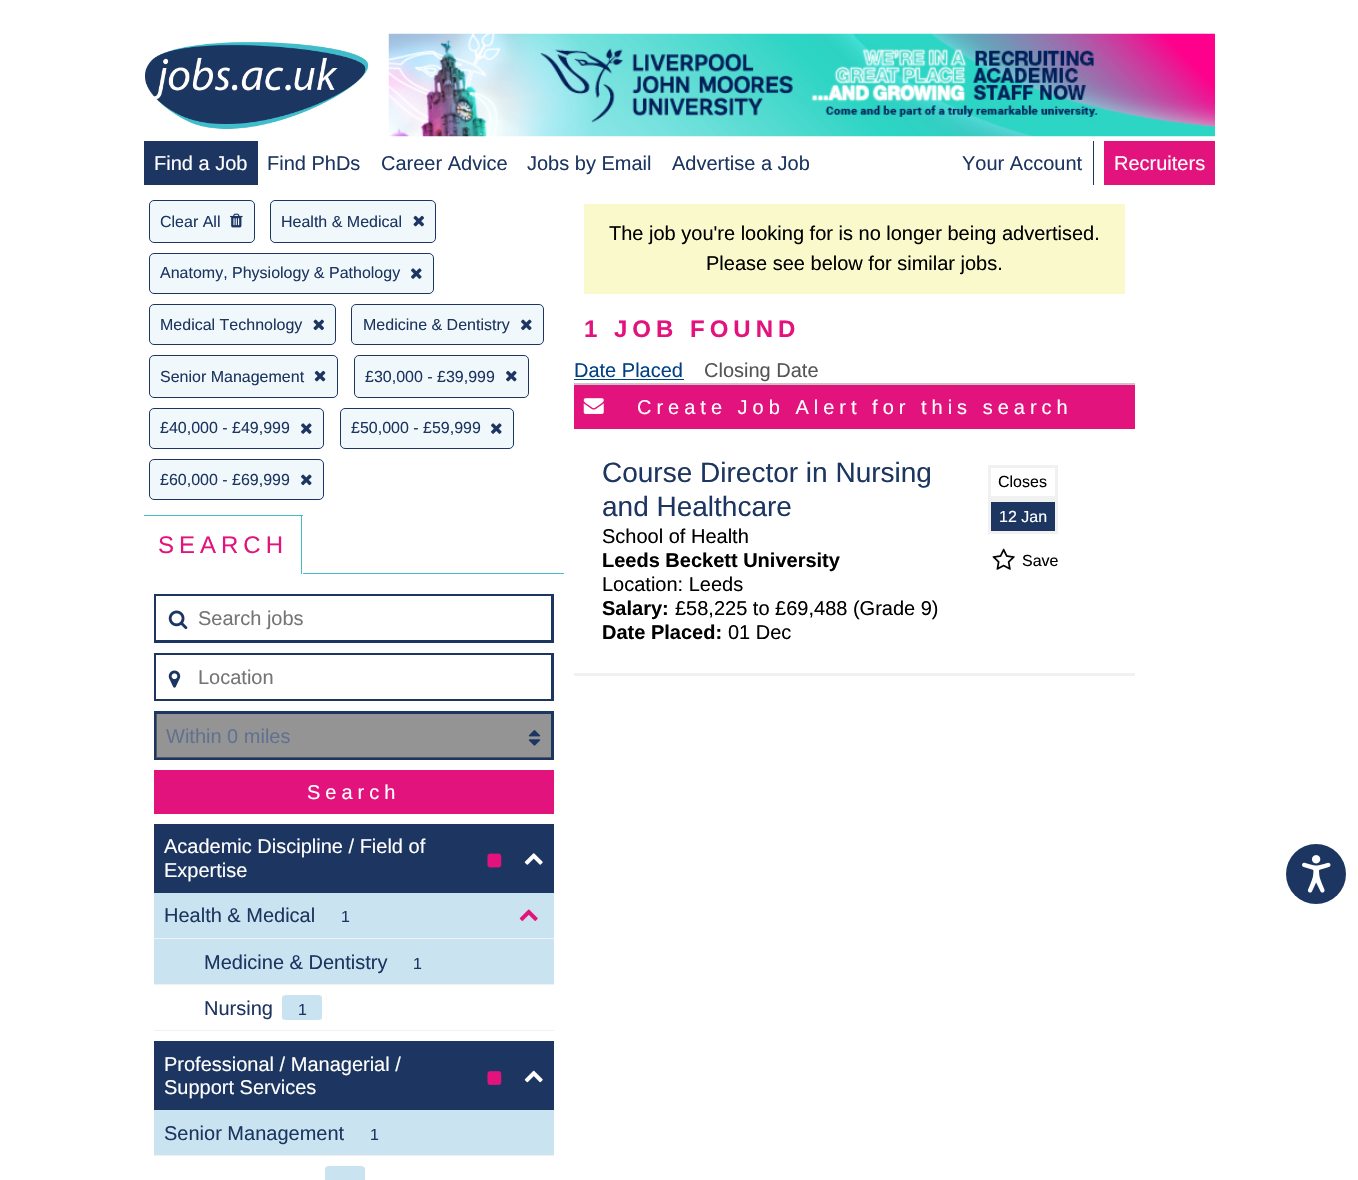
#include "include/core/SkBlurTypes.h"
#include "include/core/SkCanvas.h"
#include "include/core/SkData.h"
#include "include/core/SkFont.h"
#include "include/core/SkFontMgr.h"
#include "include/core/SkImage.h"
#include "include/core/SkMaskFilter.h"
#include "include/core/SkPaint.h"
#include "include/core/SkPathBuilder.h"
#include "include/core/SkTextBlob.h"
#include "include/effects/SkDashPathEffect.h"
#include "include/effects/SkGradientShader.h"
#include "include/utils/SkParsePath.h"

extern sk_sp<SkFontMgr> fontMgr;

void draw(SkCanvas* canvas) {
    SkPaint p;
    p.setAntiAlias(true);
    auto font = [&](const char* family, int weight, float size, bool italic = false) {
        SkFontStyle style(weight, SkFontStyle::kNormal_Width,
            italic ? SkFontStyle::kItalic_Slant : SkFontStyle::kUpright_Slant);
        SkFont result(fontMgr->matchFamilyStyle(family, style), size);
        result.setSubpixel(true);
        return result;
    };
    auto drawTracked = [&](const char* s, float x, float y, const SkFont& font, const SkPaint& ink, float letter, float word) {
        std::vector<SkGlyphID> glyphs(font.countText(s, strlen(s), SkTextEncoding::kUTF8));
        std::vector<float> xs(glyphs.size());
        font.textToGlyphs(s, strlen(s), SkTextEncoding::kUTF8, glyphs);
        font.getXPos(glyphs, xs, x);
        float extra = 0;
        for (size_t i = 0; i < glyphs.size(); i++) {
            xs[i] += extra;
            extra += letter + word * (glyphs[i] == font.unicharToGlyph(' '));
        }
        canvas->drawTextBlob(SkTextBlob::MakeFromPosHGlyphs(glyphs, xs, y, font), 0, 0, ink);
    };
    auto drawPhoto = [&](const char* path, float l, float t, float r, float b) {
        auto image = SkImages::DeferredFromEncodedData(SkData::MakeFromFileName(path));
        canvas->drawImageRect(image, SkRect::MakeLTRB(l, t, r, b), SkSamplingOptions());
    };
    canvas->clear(0xFFFFFFFF);
    drawPhoto("media/1.png", 145, 41, 369, 129);
    drawPhoto("media/2.png", 388, 33, 1215, 137);
    p.setColor(0xFF1D3661);
    canvas->drawRect(SkRect::MakeLTRB(144, 141, 258, 185), p);
    auto font1 = font("Liberation Sans", 400, 20);
    p.setColor(0xFFFFFFFF);
    canvas->drawString("Find a Job", 154, 170, font1, p);
    p.setColor(0xFF1D3661);
    {
        const struct { const char* s; float x, y; } items[] = {
            {"Find PhDs", 267, 170},
            {"Career Advice", 381, 170},
            {"Jobs by Email", 527, 170},
            {"Advertise a Job", 672, 170},
        };
        for (auto [s, x, y] : items) {
            canvas->drawString(s, x, y, font1, p);
        }
    }
    canvas->drawRect(SkRect::MakeLTRB(1093, 141, 1094, 185), p);
    canvas->drawString("Your Account", 962, 170, font1, p);
    p.setColor(0xFFE3137E);
    canvas->drawRect(SkRect::MakeLTRB(1104, 141, 1215, 185), p);
    p.setColor(0xFFFFFFFF);
    canvas->drawString("Recruiters", 1114, 170, font1, p);
    p.setColor(0xFFF1F8FB);
    canvas->drawRoundRect(SkRect::MakeLTRB(149.5f, 200.5f, 254.5f, 242.5f), 4.5f, 4.5f, p);
    p.setStyle(SkPaint::kStroke_Style);
    p.setStrokeWidth(1);
    p.setColor(0xFF1D3661);
    canvas->drawRoundRect(SkRect::MakeLTRB(149.5f, 200.5f, 254.5f, 242.5f), 4.5f, 4.5f, p);
    auto font2 = font("Liberation Sans", 400, 16);
    p.setStyle(SkPaint::kFill_Style);
    canvas->drawString("Clear All", 160, 227, font2, p);
    drawPhoto("media/3.png", 230, 213, 243, 228);
    p.setColor(0xFFF1F8FB);
    canvas->drawRoundRect(SkRect::MakeLTRB(270.5f, 200.5f, 435.5f, 242.5f), 4.5f, 4.5f, p);
    p.setStyle(SkPaint::kStroke_Style);
    p.setColor(0xFF1D3661);
    canvas->drawRoundRect(SkRect::MakeLTRB(270.5f, 200.5f, 435.5f, 242.5f), 4.5f, 4.5f, p);
    p.setStyle(SkPaint::kFill_Style);
    canvas->drawString("Health & Medical", 281, 227, font2, p);
    drawPhoto("media/4.png", 413, 215, 424, 227);
    p.setColor(0xFFF1F8FB);
    canvas->drawRoundRect(SkRect::MakeLTRB(149.5f, 253.5f, 433.5f, 293.5f), 4.5f, 4.5f, p);
    p.setStyle(SkPaint::kStroke_Style);
    p.setColor(0xFF1D3661);
    canvas->drawRoundRect(SkRect::MakeLTRB(149.5f, 253.5f, 433.5f, 293.5f), 4.5f, 4.5f, p);
    p.setStyle(SkPaint::kFill_Style);
    canvas->drawString("Anatomy, Physiology & Pathology", 160, 278, font2, p);
    drawPhoto("media/5.png", 411, 268, 422, 279);
    p.setColor(0xFFF1F8FB);
    canvas->drawRoundRect(SkRect::MakeLTRB(149.5f, 304.5f, 335.5f, 344.5f), 4.5f, 4.5f, p);
    p.setStyle(SkPaint::kStroke_Style);
    p.setColor(0xFF1D3661);
    canvas->drawRoundRect(SkRect::MakeLTRB(149.5f, 304.5f, 335.5f, 344.5f), 4.5f, 4.5f, p);
    p.setStyle(SkPaint::kFill_Style);
    canvas->drawString("Medical Technology", 160, 330, font2, p);
    drawPhoto("media/6.png", 313, 319, 324, 331);
    p.setColor(0xFFF1F8FB);
    canvas->drawRoundRect(SkRect::MakeLTRB(351.5f, 304.5f, 543.5f, 344.5f), 4.5f, 4.5f, p);
    p.setStyle(SkPaint::kStroke_Style);
    p.setColor(0xFF1D3661);
    canvas->drawRoundRect(SkRect::MakeLTRB(351.5f, 304.5f, 543.5f, 344.5f), 4.5f, 4.5f, p);
    p.setStyle(SkPaint::kFill_Style);
    canvas->drawString("Medicine & Dentistry", 363, 330, font2, p);
    drawPhoto("media/7.png", 521, 319, 532, 331);
    p.setColor(0xFFF1F8FB);
    canvas->drawRoundRect(SkRect::MakeLTRB(149.5f, 355.5f, 337.5f, 397.5f), 4.5f, 4.5f, p);
    p.setStyle(SkPaint::kStroke_Style);
    p.setColor(0xFF1D3661);
    canvas->drawRoundRect(SkRect::MakeLTRB(149.5f, 355.5f, 337.5f, 397.5f), 4.5f, 4.5f, p);
    p.setStyle(SkPaint::kFill_Style);
    canvas->drawString("Senior Management", 160, 382, font2, p);
    drawPhoto("media/8.png", 314, 370, 326, 382);
    p.setColor(0xFFF1F8FB);
    canvas->drawRoundRect(SkRect::MakeLTRB(354.5f, 355.5f, 528.5f, 397.5f), 4.5f, 4.5f, p);
    p.setStyle(SkPaint::kStroke_Style);
    p.setColor(0xFF1D3661);
    canvas->drawRoundRect(SkRect::MakeLTRB(354.5f, 355.5f, 528.5f, 397.5f), 4.5f, 4.5f, p);
    p.setStyle(SkPaint::kFill_Style);
    canvas->drawString("£30,000 - £39,999", 365, 382, font2, p);
    drawPhoto("media/9.png", 506, 370, 517, 382);
    p.setColor(0xFFF1F8FB);
    canvas->drawRoundRect(SkRect::MakeLTRB(149.5f, 408.5f, 323.5f, 448.5f), 4.5f, 4.5f, p);
    p.setStyle(SkPaint::kStroke_Style);
    p.setColor(0xFF1D3661);
    canvas->drawRoundRect(SkRect::MakeLTRB(149.5f, 408.5f, 323.5f, 448.5f), 4.5f, 4.5f, p);
    p.setStyle(SkPaint::kFill_Style);
    canvas->drawString("£40,000 - £49,999", 160, 433, font2, p);
    drawPhoto("media/5.png", 301, 423, 312, 434);
    p.setColor(0xFFF1F8FB);
    canvas->drawRoundRect(SkRect::MakeLTRB(340.5f, 408.5f, 513.5f, 448.5f), 4.5f, 4.5f, p);
    p.setStyle(SkPaint::kStroke_Style);
    p.setColor(0xFF1D3661);
    canvas->drawRoundRect(SkRect::MakeLTRB(340.5f, 408.5f, 513.5f, 448.5f), 4.5f, 4.5f, p);
    p.setStyle(SkPaint::kFill_Style);
    canvas->drawString("£50,000 - £59,999", 351, 433, font2, p);
    drawPhoto("media/5.png", 491, 423, 502, 434);
    p.setColor(0xFFF1F8FB);
    canvas->drawRoundRect(SkRect::MakeLTRB(149.5f, 459.5f, 323.5f, 499.5f), 4.5f, 4.5f, p);
    p.setStyle(SkPaint::kStroke_Style);
    p.setColor(0xFF1D3661);
    canvas->drawRoundRect(SkRect::MakeLTRB(149.5f, 459.5f, 323.5f, 499.5f), 4.5f, 4.5f, p);
    p.setStyle(SkPaint::kFill_Style);
    canvas->drawString("£60,000 - £69,999", 160, 485, font2, p);
    drawPhoto("media/7.png", 301, 474, 312, 486);
    {
        const struct { float l, t, r, b; SkColor color; } items[] = {
            {303, 573, 564, 574, 0xFF47BCCA},
            {144, 515, 303, 516, 0xFF47BCCA},
            {301, 515, 302, 574, 0xFF47BCCA},
        };
        for (auto [l, t, r, b, color] : items) {
            p.setColor(color);
            canvas->drawRect(SkRect::MakeLTRB(l, t, r, b), p);
        }
    }
    auto font3 = font("Liberation Sans", 400, 24);
    p.setColor(0xFFE3137E);
    drawTracked("SEARCH", 158, 553, font3, p, 5, 0);
    p.setStyle(SkPaint::kStroke_Style);
    p.setStrokeWidth(3);
    p.setColor(0xFF1D3661);
    canvas->drawRect(SkRect::MakeLTRB(155.5f, 595.5f, 552.5f, 641.5f), p);
    p.setStyle(SkPaint::kFill_Style);
    p.setColor(0xFFFFFFFF);
    canvas->drawRect(SkRect::MakeLTRB(156, 596, 551, 640), p);
    drawPhoto("media/10.png", 168, 610, 188, 630);
    p.setColor(0xFF757575);
    canvas->drawString("Search jobs", 198, 625, font1, p);
    p.setStyle(SkPaint::kStroke_Style);
    p.setColor(0xFF1D3661);
    canvas->drawRect(SkRect::MakeLTRB(155.5f, 654.5f, 552.5f, 699.5f), p);
    p.setStyle(SkPaint::kFill_Style);
    p.setColor(0xFFFFFFFF);
    canvas->drawRect(SkRect::MakeLTRB(156, 655, 551, 699), p);
    drawPhoto("media/11.png", 168, 670, 181, 688);
    p.setColor(0xFF757575);
    canvas->drawString("Location", 198, 684, font1, p);
    p.setStyle(SkPaint::kStroke_Style);
    p.setColor(0xFF1D3661);
    canvas->drawRect(SkRect::MakeLTRB(155.5f, 712.5f, 552.5f, 758.5f), p);
    p.setStyle(SkPaint::kFill_Style);
    p.setColor(0xB3666666);
    canvas->drawRect(SkRect::MakeLTRB(156, 714, 551, 758), p);
    p.setColor(0xFF617290);
    canvas->drawString("Within 0 miles", 166, 743, font1, p);
    drawPhoto("media/12.png", 528, 730, 541, 746);
    p.setColor(0xFFE3137E);
    canvas->drawRect(SkRect::MakeLTRB(154, 770, 554, 814), p);
    p.setColor(0xFFFFFFFF);
    drawTracked("Search", 307, 799, font1, p, 5, 0);
    p.setColor(0xFF1D3661);
    canvas->drawRect(SkRect::MakeLTRB(154, 824, 554, 893), p);
    p.setColor(0xFFFFFFFF);
    canvas->drawString("Academic Discipline / Field of", 164, 853, font1, p);
    canvas->drawString("Expertise", 164, 877, font1, p);
    drawPhoto("media/13.png", 487, 853, 502, 868);
    drawPhoto("media/14.png", 524, 853, 543, 865);
    p.setColor(0xFFC9E4F0);
    canvas->drawRect(SkRect::MakeLTRB(154, 893, 554, 938), p);
    p.setColor(0xFFF1F1F1);
    canvas->drawRect(SkRect::MakeLTRB(154, 938, 554, 939), p);
    p.setColor(0xFF1D3661);
    canvas->drawString("Health & Medical", 164, 922, font1, p);
    canvas->drawString("1", 341, 922, font2, p);
    drawPhoto("media/15.png", 519, 909, 538, 921);
    p.setColor(0xFFC9E4F0);
    canvas->drawRect(SkRect::MakeLTRB(154, 939, 554, 984), p);
    p.setColor(0xFFF1F1F1);
    canvas->drawRect(SkRect::MakeLTRB(154, 984, 554, 985), p);
    p.setColor(0xFF1D3661);
    canvas->drawString("Medicine & Dentistry", 204, 969, font1, p);
    canvas->drawString("1", 413, 969, font2, p);
    p.setColor(0xFFF1F1F1);
    canvas->drawRect(SkRect::MakeLTRB(154, 1030, 554, 1031), p);
    p.setColor(0xFF1D3661);
    canvas->drawString("Nursing", 204, 1015, font1, p);
    p.setColor(0xFFC9E4F0);
    canvas->drawPath(SkPathBuilder().moveTo(286, 995).lineTo(318, 995).cubicTo(321, 995, 322, 996, 322, 998).lineTo(322, 1018).cubicTo(322, 1019, 321, 1020, 318, 1020).lineTo(286, 1020).cubicTo(284, 1020, 282, 1019, 282, 1018).lineTo(282, 998).cubicTo(282, 996, 284, 995, 286, 995).close().detach(), p);
    p.setColor(0xFF1D3661);
    canvas->drawString("1", 298, 1015, font2, p);
    canvas->drawRect(SkRect::MakeLTRB(154, 1041, 554, 1110), p);
    p.setColor(0xFFFFFFFF);
    canvas->drawString("Professional / Managerial /", 164, 1071, font1, p);
    canvas->drawString("Support Services", 164, 1094, font1, p);
    drawPhoto("media/16.png", 487, 1071, 502, 1085);
    drawPhoto("media/17.png", 524, 1070, 543, 1083);
    p.setColor(0xFFC9E4F0);
    canvas->drawRect(SkRect::MakeLTRB(154, 1110, 554, 1155), p);
    p.setColor(0xFFF1F1F1);
    canvas->drawRect(SkRect::MakeLTRB(154, 1155, 554, 1156), p);
    p.setColor(0xFF1D3661);
    canvas->drawString("Senior Management", 164, 1140, font1, p);
    canvas->drawString("1", 370, 1140, font2, p);
    p.setColor(0xFFC9E4F0);
    canvas->drawPath(SkPathBuilder().moveTo(329, 1166).lineTo(361, 1166).cubicTo(363, 1166, 365, 1167, 365, 1169).lineTo(365, 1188).cubicTo(365, 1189, 363, 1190, 361, 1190).lineTo(329, 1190).cubicTo(327, 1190, 325, 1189, 325, 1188).lineTo(325, 1169).cubicTo(325, 1167, 327, 1166, 329, 1166).close().detach(), p);
    p.setColor(0xFFF9F9CC);
    canvas->drawRect(SkRect::MakeLTRB(584, 204, 1125, 294), p);
    p.setColor(0xFF000000);
    canvas->drawString("The job you're looking for is no longer being advertised.", 609, 240, font1, p);
    canvas->drawString("Please see below for similar jobs.", 706, 270, font1, p);
    auto font4 = font("Liberation Sans", 700, 24);
    p.setColor(0xFFE3137E);
    drawTracked("1 JOB FOUND", 584, 337, font4, p, 5, 0);
    p.setColor(0xFFC6C6C6);
    canvas->drawRect(SkRect::MakeLTRB(574, 383, 1135, 385), p);
    p.setColor(0xFF004184);
    canvas->drawString("Date Placed", 574, 377, font1, p);
    canvas->drawRect(SkRect::MakeLTRB(574, 379, 684, 380), p);
    p.setColor(0xFF555555);
    canvas->drawString("Closing Date", 704, 377, font1, p);
    p.setColor(0xFFE3137E);
    canvas->drawRect(SkRect::MakeLTRB(574, 385, 1135, 429), p);
    drawPhoto("media/18.png", 583, 398, 604, 414);
    p.setColor(0xFFFFFFFF);
    drawTracked("Create Job Alert for this search", 637, 414, font1, p, 5, 0);
    p.setColor(0xFFF1F1F1);
    canvas->drawRect(SkRect::MakeLTRB(574, 673, 1135, 676), p);
    auto font5 = font("Liberation Sans", 400, 28);
    p.setColor(0xFF1D3661);
    canvas->drawString("Course Director in Nursing", 602, 482, font5, p);
    canvas->drawString("and Healthcare", 602, 516, font5, p);
    p.setColor(0xFF000000);
    canvas->drawString("School of Health", 602, 543, font1, p);
    auto font6 = font("Liberation Sans", 700, 20);
    canvas->drawString("Leeds Beckett University", 602, 567, font6, p);
    canvas->drawString("Location: Leeds", 602, 591, font1, p);
    canvas->drawString("Salary:", 602, 615, font6, p);
    canvas->drawString("£58,225 to £69,488 (Grade 9)", 675, 615, font1, p);
    canvas->drawString("Date Placed:", 602, 639, font6, p);
    canvas->drawString("01 Dec", 728, 639, font1, p);
    p.setStyle(SkPaint::kStroke_Style);
    p.setColor(0xFFF1F1F1);
    canvas->drawRect(SkRect::MakeLTRB(989.5f, 466.5f, 1056.5f, 497.5f), p);
    p.setStyle(SkPaint::kFill_Style);
    p.setColor(0xFF000000);
    canvas->drawString("Closes", 998, 487, font2, p);
    p.setColor(0xFF1D3661);
    canvas->drawRect(SkRect::MakeLTRB(989.5f, 500.5f, 1056.5f, 532.5f), p);
    p.setStyle(SkPaint::kStroke_Style);
    p.setColor(0xFFF1F1F1);
    canvas->drawRect(SkRect::MakeLTRB(989.5f, 500.5f, 1056.5f, 532.5f), p);
    p.setStyle(SkPaint::kFill_Style);
    p.setColor(0xFFFFFFFF);
    canvas->drawString("12 Jan", 999, 522, font2, p);
    drawPhoto("media/19.png", 992, 548, 1015, 570);
    p.setColor(0xFF000000);
    canvas->drawString("Save", 1022, 566, font2, p);
    p.setColor(0xFF1D3661);
    canvas->drawCircle(1316, 874, 30, p);
    drawPhoto("media/20.png", 1302, 855, 1331, 893);
}
